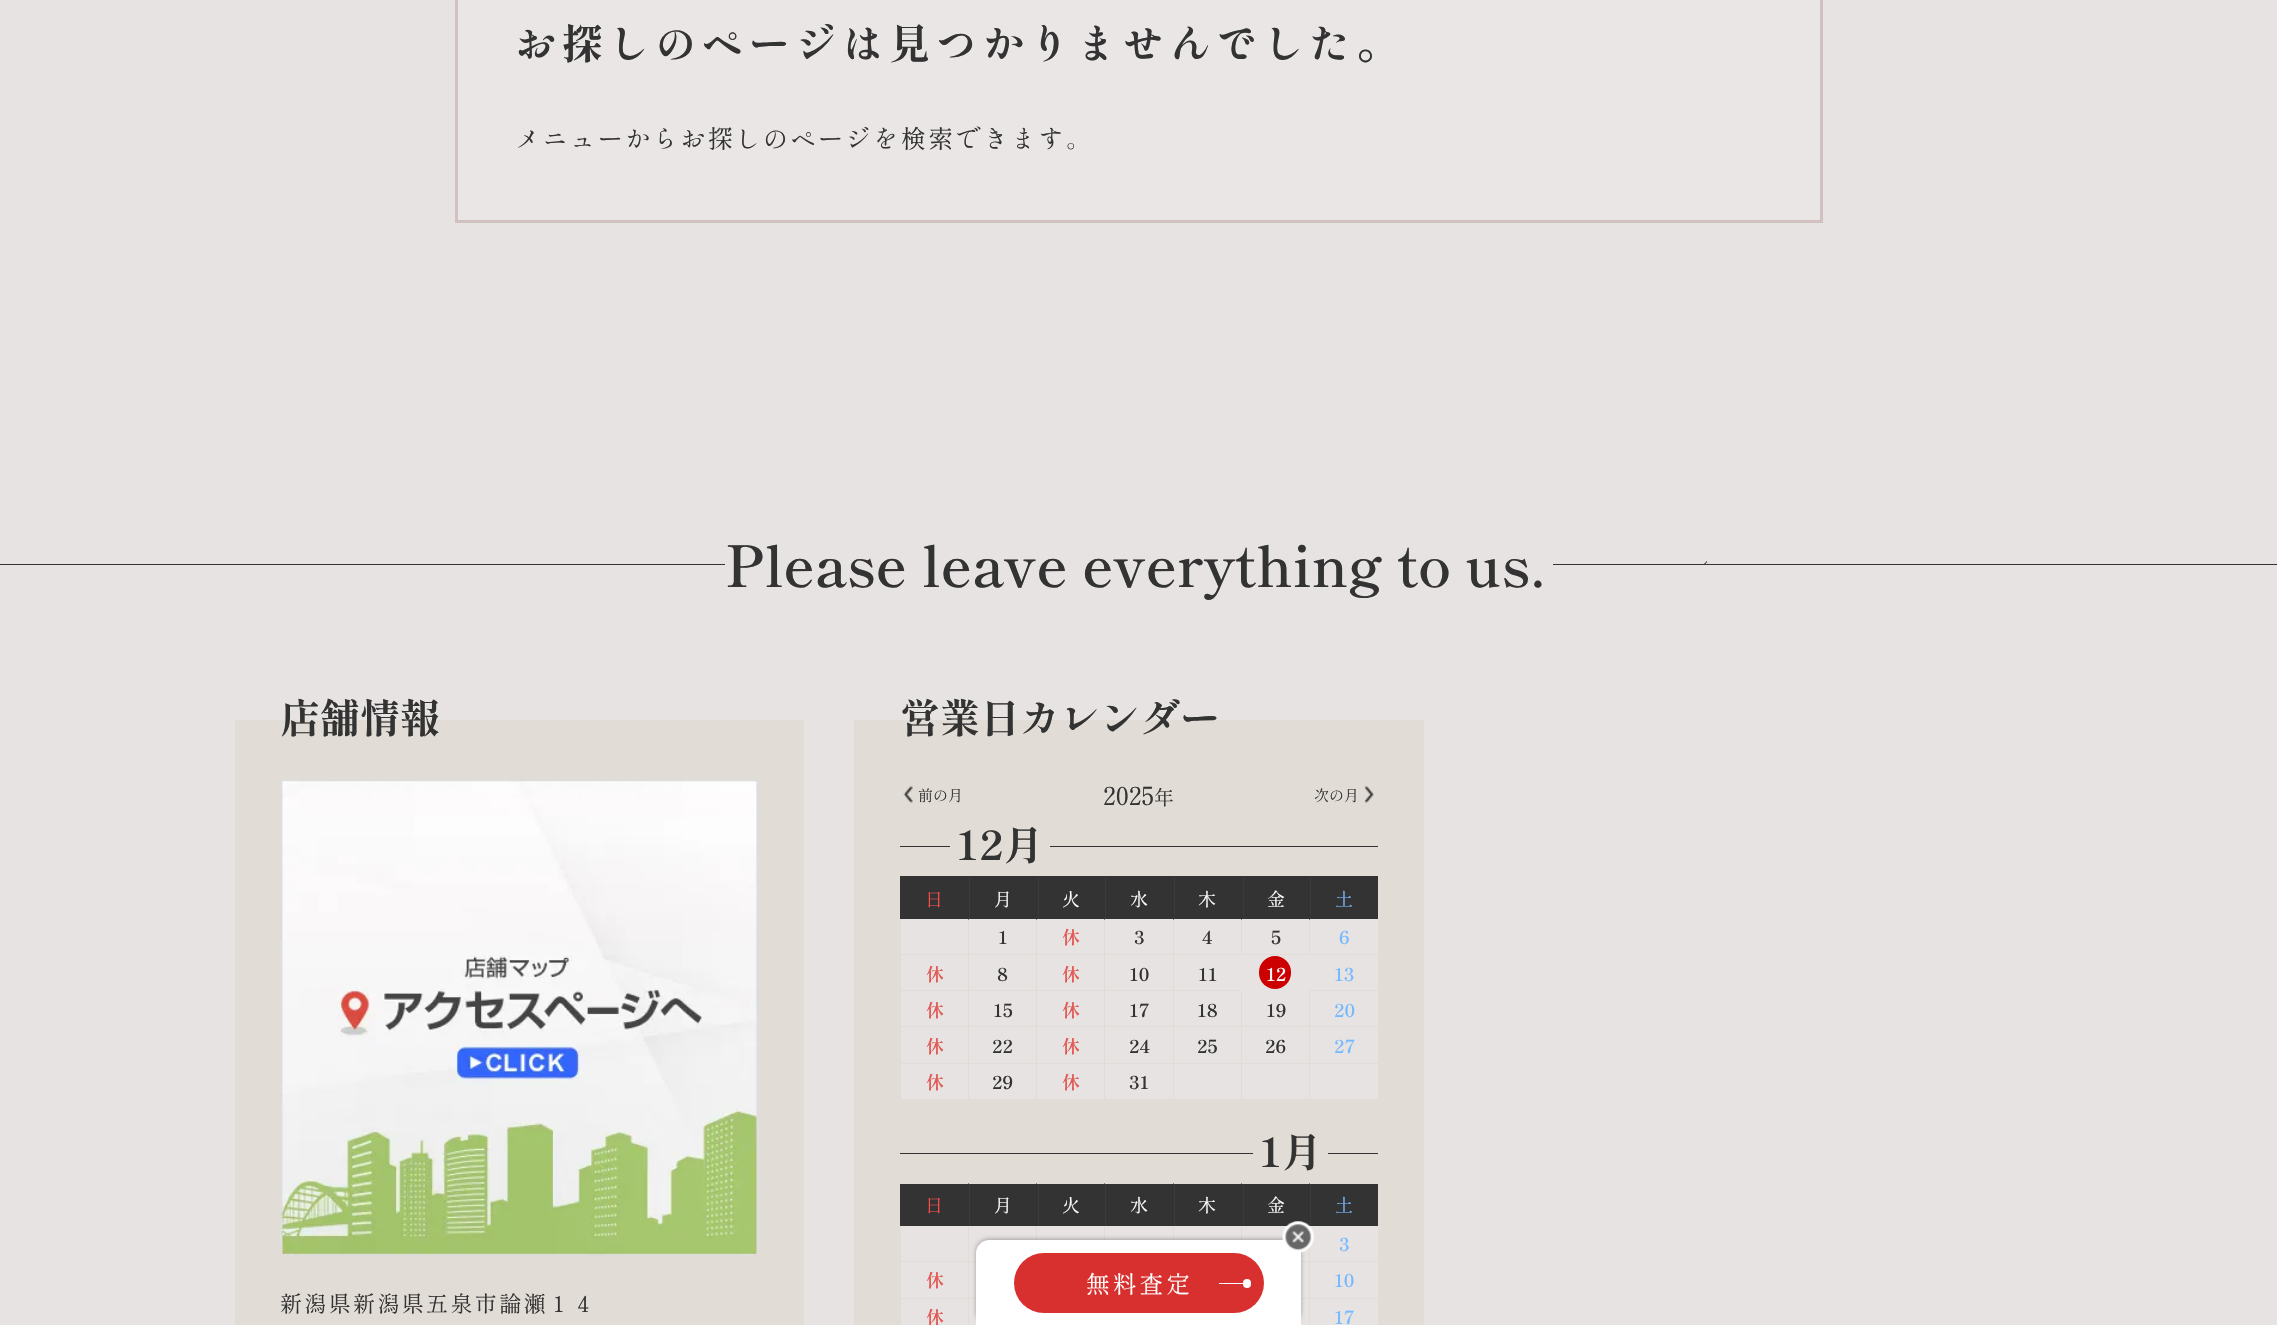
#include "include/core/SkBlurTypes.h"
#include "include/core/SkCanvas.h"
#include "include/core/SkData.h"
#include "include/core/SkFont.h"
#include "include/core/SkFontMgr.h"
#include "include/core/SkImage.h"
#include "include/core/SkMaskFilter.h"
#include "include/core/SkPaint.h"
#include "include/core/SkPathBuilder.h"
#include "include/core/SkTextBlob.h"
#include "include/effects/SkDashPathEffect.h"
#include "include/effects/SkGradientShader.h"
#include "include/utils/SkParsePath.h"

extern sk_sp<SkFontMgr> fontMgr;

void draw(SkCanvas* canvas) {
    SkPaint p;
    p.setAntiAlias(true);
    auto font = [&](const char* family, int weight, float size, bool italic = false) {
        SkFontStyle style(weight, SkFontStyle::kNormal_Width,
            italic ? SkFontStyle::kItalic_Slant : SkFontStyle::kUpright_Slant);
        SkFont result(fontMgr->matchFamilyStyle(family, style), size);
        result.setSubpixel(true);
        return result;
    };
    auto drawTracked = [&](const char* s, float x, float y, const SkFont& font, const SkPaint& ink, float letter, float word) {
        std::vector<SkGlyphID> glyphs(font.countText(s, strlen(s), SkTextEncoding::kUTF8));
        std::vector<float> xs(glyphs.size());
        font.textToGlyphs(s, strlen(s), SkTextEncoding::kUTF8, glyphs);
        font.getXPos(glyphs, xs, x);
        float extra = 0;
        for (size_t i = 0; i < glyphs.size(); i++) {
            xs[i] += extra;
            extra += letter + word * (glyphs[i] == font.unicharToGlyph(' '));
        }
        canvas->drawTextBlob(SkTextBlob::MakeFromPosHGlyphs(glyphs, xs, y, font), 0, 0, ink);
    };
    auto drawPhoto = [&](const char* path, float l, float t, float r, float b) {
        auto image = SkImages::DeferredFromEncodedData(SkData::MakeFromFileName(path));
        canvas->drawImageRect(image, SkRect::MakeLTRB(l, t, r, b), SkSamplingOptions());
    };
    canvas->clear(0xFFE8E3E3);
    p.setColor(0xFFEAE6E6);
    canvas->drawRect(SkRect::MakeLTRB(456.5f, -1.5f, 1821.5f, 221.5f), p);
    p.setStyle(SkPaint::kStroke_Style);
    p.setStrokeWidth(3);
    p.setColor(0xFFD2C1C1);
    canvas->drawRect(SkRect::MakeLTRB(456.5f, -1.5f, 1821.5f, 221.5f), p);
    auto font1 = font("Shippori Mincho", 700, 41);
    p.setStyle(SkPaint::kFill_Style);
    p.setColor(0xFF333333);
    drawTracked("お探しのページは見つかりませんでした。", 515, 59, font1, p, 5.75f, 0);
    auto font2 = font("Shippori Mincho", 400, 25.05f);
    drawTracked("メニューからお探しのページを検索できます。", 515, 148, font2, p, 2.5f, 0);
    p.setColor(0xFFE1DCD5);
    canvas->drawPath(SkPathBuilder().moveTo(1681, 642).lineTo(1654, 614).lineTo(1707, 561).lineTo(1734, 589).close().detach(), p);
    p.setColor(0xFF151515);
    canvas->drawPath(SkPathBuilder().moveTo(1654, 615).lineTo(1654, 614).lineTo(1707, 561).lineTo(1707, 562).close().detach(), p);
    {
        const struct { float l, t, r, b; SkColor color; } items[] = {
            {1654, 565, 1734, 642, 0xFFE8E3E3},
            {0, 564, 2277, 565, 0xFF333333},
            {725, 564, 1553, 565, 0xFFE8E3E3},
        };
        for (auto [l, t, r, b, color] : items) {
            p.setColor(color);
            canvas->drawRect(SkRect::MakeLTRB(l, t, r, b), p);
        }
    }
    auto font3 = font("Shippori Mincho", 600, 57);
    p.setColor(0xFF333333);
    canvas->drawString("Please leave everything to us.", 725, 587, font3, p);
    p.setColor(0xFFE1DCD5);
    canvas->drawRect(SkRect::MakeLTRB(235, 720, 804, 1325), p);
    auto font4 = font("Shippori Mincho", 700, 40);
    p.setColor(0xFF333333);
    canvas->drawString("店舗情報", 280, 733, font4, p);
    drawPhoto("media/1.png", 280, 779, 759, 1256);
    auto font5 = font("Shippori Mincho", 400, 22.1f);
    drawTracked("新潟県新潟県五泉市論瀬１４", 280, 1312, font5, p, 2.25f, 0);
    p.setColor(0xFFE1DCD5);
    canvas->drawRect(SkRect::MakeLTRB(854, 720, 1424, 1325), p);
    p.setColor(0xFF333333);
    canvas->drawString("営業日カレンダー", 900, 733, font4, p);
    drawPhoto("media/2.png", 903, 786, 913, 803);
    auto font6 = font("Shippori Mincho", 400, 15);
    canvas->drawString("前の月", 918, 801, font6, p);
    auto font7 = font("Shippori Mincho", 400, 25);
    canvas->drawString("2025", 1103, 805, font7, p);
    auto font8 = font("Shippori Mincho", 400, 20);
    canvas->drawString("年", 1154, 805, font8, p);
    drawPhoto("media/3.png", 1364, 786, 1374, 803);
    canvas->drawString("次の月", 1314, 801, font6, p);
    canvas->drawRect(SkRect::MakeLTRB(900, 846, 1378, 847), p);
    p.setColor(0xFFE1DCD5);
    canvas->drawPath(SkPathBuilder().moveTo(959, 819).lineTo(1041, 819).cubicTo(1046, 819, 1050, 823, 1050, 828).lineTo(1050, 866).lineTo(950, 866).lineTo(950, 828).cubicTo(950, 823, 954, 819, 959, 819).close().detach(), p);
    p.setColor(0xFF333333);
    canvas->drawString("12月", 956, 860, font4, p);
    p.setColor(0xFF817D77);
    canvas->drawRect(SkRect::MakeLTRB(968, 919, 969, 920), p);
    p.setColor(0xFF333333);
    canvas->drawRect(SkRect::MakeLTRB(900, 876, 969, 919), p);
    auto font9 = font("Shippori Mincho", 400, 18);
    p.setColor(0xFFFF4D4D);
    canvas->drawString("日", 925, 906, font9, p);
    {
        const struct { float l, t, r, b; SkColor color; } items[] = {
            {1036, 919, 1037, 920, 0xFF817D77},
            {970, 876, 1105, 919, 0xFF333333},
            {969, 876, 970, 919, 0xFF3A3A3A},
        };
        for (auto [l, t, r, b, color] : items) {
            p.setColor(color);
            canvas->drawRect(SkRect::MakeLTRB(l, t, r, b), p);
        }
    }
    p.setColor(0xFFFFFFFF);
    canvas->drawString("月", 994, 906, font9, p);
    p.setColor(0xFF817D77);
    canvas->drawRect(SkRect::MakeLTRB(1104, 919, 1105, 920), p);
    p.setColor(0xFF3A3A3A);
    canvas->drawRect(SkRect::MakeLTRB(1038, 876, 1039, 919), p);
    p.setColor(0xFFFFFFFF);
    canvas->drawString("火", 1062, 906, font9, p);
    {
        const struct { float l, t, r, b; SkColor color; } items[] = {
            {1173, 919, 1174, 920, 0xFF817D77},
            {1106, 876, 1174, 919, 0xFF333333},
            {1105, 876, 1106, 919, 0xFF3A3A3A},
        };
        for (auto [l, t, r, b, color] : items) {
            p.setColor(color);
            canvas->drawRect(SkRect::MakeLTRB(l, t, r, b), p);
        }
    }
    p.setColor(0xFFFFFFFF);
    canvas->drawString("水", 1130, 906, font9, p);
    {
        const struct { float l, t, r, b; SkColor color; } items[] = {
            {1241, 919, 1242, 920, 0xFF817D77},
            {1175, 876, 1310, 919, 0xFF333333},
            {1174, 876, 1175, 919, 0xFF3A3A3A},
        };
        for (auto [l, t, r, b, color] : items) {
            p.setColor(color);
            canvas->drawRect(SkRect::MakeLTRB(l, t, r, b), p);
        }
    }
    p.setColor(0xFFFFFFFF);
    canvas->drawString("木", 1198, 906, font9, p);
    p.setColor(0xFF817D77);
    canvas->drawRect(SkRect::MakeLTRB(1309, 919, 1310, 920), p);
    p.setColor(0xFF3A3A3A);
    canvas->drawRect(SkRect::MakeLTRB(1243, 876, 1244, 919), p);
    p.setColor(0xFFFFFFFF);
    canvas->drawString("金", 1267, 906, font9, p);
    p.setColor(0xFF333333);
    canvas->drawRect(SkRect::MakeLTRB(1311, 876, 1378, 919), p);
    p.setColor(0xFF3A3A3A);
    canvas->drawRect(SkRect::MakeLTRB(1310, 876, 1311, 919), p);
    p.setColor(0xFF75B9FF);
    canvas->drawString("土", 1335, 906, font9, p);
    p.setColor(0xFFE8E3E3);
    canvas->drawRect(SkRect::MakeLTRB(901, 919, 968, 954), p);
    canvas->drawRect(SkRect::MakeLTRB(969, 919, 1036, 954), p);
    auto font10 = font("Shippori Mincho", 600, 18);
    p.setColor(0xFF333333);
    canvas->drawString("1", 998, 944, font10, p);
    p.setColor(0xFFE8E3E3);
    canvas->drawRect(SkRect::MakeLTRB(1037, 919, 1104, 954), p);
    p.setColor(0xFFE25853);
    canvas->drawString("休", 1062, 944, font10, p);
    p.setColor(0xFFE8E3E3);
    canvas->drawRect(SkRect::MakeLTRB(1105, 919, 1173, 954), p);
    p.setColor(0xFF333333);
    canvas->drawString("3", 1134, 944, font10, p);
    p.setColor(0xFFE8E3E3);
    canvas->drawRect(SkRect::MakeLTRB(1174, 919, 1241, 954), p);
    p.setColor(0xFF333333);
    canvas->drawString("4", 1202, 944, font10, p);
    p.setColor(0xFFE8E3E3);
    canvas->drawRect(SkRect::MakeLTRB(1242, 919, 1309, 954), p);
    p.setColor(0xFF333333);
    canvas->drawString("5", 1271, 944, font10, p);
    p.setColor(0xFFE8E3E3);
    canvas->drawRect(SkRect::MakeLTRB(1310, 919, 1378, 954), p);
    p.setColor(0xFF75B9FF);
    canvas->drawString("6", 1339, 944, font10, p);
    p.setColor(0xFFE8E3E3);
    canvas->drawRect(SkRect::MakeLTRB(901, 955, 968, 990), p);
    p.setColor(0xFFE25853);
    canvas->drawString("休", 926, 981, font10, p);
    p.setColor(0xFFE8E3E3);
    canvas->drawRect(SkRect::MakeLTRB(969, 955, 1036, 990), p);
    p.setColor(0xFF333333);
    canvas->drawString("8", 997, 981, font10, p);
    p.setColor(0xFFE8E3E3);
    canvas->drawRect(SkRect::MakeLTRB(1037, 955, 1104, 990), p);
    p.setColor(0xFFE25853);
    canvas->drawString("休", 1062, 981, font10, p);
    p.setColor(0xFFE8E3E3);
    canvas->drawRect(SkRect::MakeLTRB(1105, 955, 1173, 990), p);
    p.setColor(0xFF333333);
    canvas->drawString("10", 1129, 981, font10, p);
    p.setColor(0xFFE8E3E3);
    canvas->drawRect(SkRect::MakeLTRB(1174, 955, 1241, 990), p);
    p.setColor(0xFF333333);
    canvas->drawString("11", 1198, 981, font10, p);
    p.setColor(0xFFE8E3E3);
    canvas->drawRect(SkRect::MakeLTRB(1241, 955, 1310, 991), p);
    p.setColor(0xFFCC0000);
    canvas->drawRoundRect(SkRect::MakeLTRB(1259, 956, 1291, 989), 16, 16, p);
    p.setColor(0xFFFFFFFF);
    canvas->drawString("12", 1266, 981, font10, p);
    p.setColor(0xFFE8E3E3);
    canvas->drawRect(SkRect::MakeLTRB(1310, 955, 1378, 990), p);
    p.setColor(0xFF75B9FF);
    canvas->drawString("13", 1334, 981, font10, p);
    p.setColor(0xFFE8E3E3);
    canvas->drawRect(SkRect::MakeLTRB(901, 991, 968, 1063), p);
    p.setColor(0xFFE25853);
    canvas->drawString("休", 926, 1017, font10, p);
    p.setColor(0xFFE8E3E3);
    canvas->drawRect(SkRect::MakeLTRB(969, 991, 1036, 1063), p);
    p.setColor(0xFF333333);
    canvas->drawString("15", 993, 1017, font10, p);
    p.setColor(0xFFE8E3E3);
    canvas->drawRect(SkRect::MakeLTRB(1037, 991, 1104, 1063), p);
    p.setColor(0xFFE25853);
    canvas->drawString("休", 1062, 1017, font10, p);
    p.setColor(0xFFE8E3E3);
    canvas->drawRect(SkRect::MakeLTRB(1105, 991, 1173, 1063), p);
    p.setColor(0xFF333333);
    canvas->drawString("17", 1129, 1017, font10, p);
    p.setColor(0xFFE8E3E3);
    canvas->drawRect(SkRect::MakeLTRB(1174, 991, 1241, 1063), p);
    p.setColor(0xFF333333);
    canvas->drawString("18", 1197, 1017, font10, p);
    p.setColor(0xFFE8E3E3);
    canvas->drawRect(SkRect::MakeLTRB(1242, 991, 1309, 1063), p);
    p.setColor(0xFF333333);
    canvas->drawString("19", 1266, 1017, font10, p);
    p.setColor(0xFFE8E3E3);
    canvas->drawRect(SkRect::MakeLTRB(1310, 991, 1378, 1063), p);
    p.setColor(0xFFE1DCD5);
    canvas->drawRect(SkRect::MakeLTRB(900, 1026, 1379, 1027), p);
    p.setColor(0xFF75B9FF);
    canvas->drawString("20", 1334, 1017, font10, p);
    p.setColor(0xFFE25853);
    canvas->drawString("休", 926, 1053, font10, p);
    p.setColor(0xFF333333);
    canvas->drawString("22", 992, 1053, font10, p);
    p.setColor(0xFFE25853);
    canvas->drawString("休", 1062, 1053, font10, p);
    p.setColor(0xFF333333);
    {
        const struct { const char* s; float x, y; } items[] = {
            {"24", 1129, 1053},
            {"25", 1197, 1053},
            {"26", 1265, 1053},
        };
        for (auto [s, x, y] : items) {
            canvas->drawString(s, x, y, font10, p);
        }
    }
    p.setColor(0xFF75B9FF);
    canvas->drawString("27", 1334, 1053, font10, p);
    p.setColor(0xFFE8E3E3);
    canvas->drawRect(SkRect::MakeLTRB(901, 1064, 968, 1099), p);
    p.setColor(0xFFE25853);
    canvas->drawString("休", 926, 1089, font10, p);
    p.setColor(0xFFE8E3E3);
    canvas->drawRect(SkRect::MakeLTRB(969, 1064, 1036, 1099), p);
    p.setColor(0xFF333333);
    canvas->drawString("29", 992, 1089, font10, p);
    p.setColor(0xFFE8E3E3);
    canvas->drawRect(SkRect::MakeLTRB(1037, 1064, 1104, 1099), p);
    p.setColor(0xFFE25853);
    canvas->drawString("休", 1062, 1089, font10, p);
    p.setColor(0xFFE8E3E3);
    canvas->drawRect(SkRect::MakeLTRB(1105, 1064, 1173, 1099), p);
    p.setColor(0xFF333333);
    canvas->drawString("31", 1129, 1089, font10, p);
    {
        const struct { float l, t, r, b; SkColor color; } items[] = {
            {1174, 1064, 1241, 1099, 0xFFE8E3E3},
            {1242, 1064, 1309, 1099, 0xFFE8E3E3},
            {1310, 1064, 1378, 1099, 0xFFE8E3E3},
            {900, 1153, 1378, 1154, 0xFF333333},
        };
        for (auto [l, t, r, b, color] : items) {
            p.setColor(color);
            canvas->drawRect(SkRect::MakeLTRB(l, t, r, b), p);
        }
    }
    p.setColor(0xFFE1DCD5);
    canvas->drawPath(SkPathBuilder().moveTo(1262, 1125).lineTo(1319, 1125).cubicTo(1324, 1125, 1328, 1129, 1328, 1134).lineTo(1328, 1173).lineTo(1253, 1173).lineTo(1253, 1134).cubicTo(1253, 1129, 1257, 1125, 1262, 1125).close().detach(), p);
    p.setColor(0xFF333333);
    canvas->drawString("1月", 1259, 1167, font4, p);
    p.setColor(0xFF817D77);
    canvas->drawRect(SkRect::MakeLTRB(968, 1183, 969, 1184), p);
    p.setColor(0xFF333333);
    canvas->drawRect(SkRect::MakeLTRB(900, 1184, 969, 1226), p);
    p.setColor(0xFFFF4D4D);
    canvas->drawString("日", 925, 1212, font9, p);
    {
        const struct { float l, t, r, b; SkColor color; } items[] = {
            {1036, 1183, 1037, 1184, 0xFF817D77},
            {970, 1184, 1105, 1226, 0xFF333333},
            {969, 1184, 970, 1226, 0xFF3A3A3A},
        };
        for (auto [l, t, r, b, color] : items) {
            p.setColor(color);
            canvas->drawRect(SkRect::MakeLTRB(l, t, r, b), p);
        }
    }
    p.setColor(0xFFFFFFFF);
    canvas->drawString("月", 994, 1212, font9, p);
    p.setColor(0xFF817D77);
    canvas->drawRect(SkRect::MakeLTRB(1104, 1183, 1105, 1184), p);
    p.setColor(0xFF3A3A3A);
    canvas->drawRect(SkRect::MakeLTRB(1038, 1184, 1039, 1226), p);
    p.setColor(0xFFFFFFFF);
    canvas->drawString("火", 1062, 1212, font9, p);
    {
        const struct { float l, t, r, b; SkColor color; } items[] = {
            {1173, 1183, 1174, 1184, 0xFF817D77},
            {1106, 1184, 1174, 1226, 0xFF333333},
            {1105, 1184, 1106, 1226, 0xFF3A3A3A},
        };
        for (auto [l, t, r, b, color] : items) {
            p.setColor(color);
            canvas->drawRect(SkRect::MakeLTRB(l, t, r, b), p);
        }
    }
    p.setColor(0xFFFFFFFF);
    canvas->drawString("水", 1130, 1212, font9, p);
    {
        const struct { float l, t, r, b; SkColor color; } items[] = {
            {1241, 1183, 1242, 1184, 0xFF817D77},
            {1175, 1184, 1310, 1226, 0xFF333333},
            {1174, 1184, 1175, 1226, 0xFF3A3A3A},
        };
        for (auto [l, t, r, b, color] : items) {
            p.setColor(color);
            canvas->drawRect(SkRect::MakeLTRB(l, t, r, b), p);
        }
    }
    p.setColor(0xFFFFFFFF);
    canvas->drawString("木", 1198, 1212, font9, p);
    p.setColor(0xFF817D77);
    canvas->drawRect(SkRect::MakeLTRB(1309, 1183, 1310, 1184), p);
    p.setColor(0xFF3A3A3A);
    canvas->drawRect(SkRect::MakeLTRB(1243, 1184, 1244, 1226), p);
    p.setColor(0xFFFFFFFF);
    canvas->drawString("金", 1267, 1212, font9, p);
    p.setColor(0xFF333333);
    canvas->drawRect(SkRect::MakeLTRB(1311, 1184, 1378, 1226), p);
    p.setColor(0xFF3A3A3A);
    canvas->drawRect(SkRect::MakeLTRB(1310, 1184, 1311, 1226), p);
    p.setColor(0xFF75B9FF);
    canvas->drawString("土", 1335, 1212, font9, p);
    {
        const struct { float l, t, r, b; SkColor color; } items[] = {
            {901, 1226, 968, 1261, 0xFFE8E3E3},
            {969, 1226, 1036, 1261, 0xFFE8E3E3},
            {1037, 1226, 1104, 1240, 0xFFE8E3E3},
            {1105, 1226, 1173, 1240, 0xFFE8E3E3},
            {1174, 1226, 1241, 1240, 0xFFE8E3E3},
            {1242, 1226, 1309, 1261, 0xFFE8E3E3},
            {1310, 1226, 1378, 1261, 0xFFE8E3E3},
        };
        for (auto [l, t, r, b, color] : items) {
            p.setColor(color);
            canvas->drawRect(SkRect::MakeLTRB(l, t, r, b), p);
        }
    }
    p.setColor(0xFF75B9FF);
    canvas->drawString("3", 1339, 1251, font10, p);
    p.setColor(0xFFE8E3E3);
    canvas->drawRect(SkRect::MakeLTRB(901, 1262, 968, 1298), p);
    p.setColor(0xFFE25853);
    canvas->drawString("休", 926, 1287, font10, p);
    {
        const struct { float l, t, r, b; SkColor color; } items[] = {
            {969, 1262, 976, 1298, 0xFFE8E3E3},
            {1301, 1262, 1309, 1298, 0xFFE8E3E3},
            {1310, 1262, 1378, 1298, 0xFFE8E3E3},
        };
        for (auto [l, t, r, b, color] : items) {
            p.setColor(color);
            canvas->drawRect(SkRect::MakeLTRB(l, t, r, b), p);
        }
    }
    p.setColor(0xFF75B9FF);
    canvas->drawString("10", 1334, 1287, font10, p);
    p.setColor(0xFFE8E3E3);
    canvas->drawRect(SkRect::MakeLTRB(901, 1299, 968, 1325), p);
    p.setColor(0xFFE25853);
    canvas->drawString("休", 926, 1324, font10, p);
    {
        const struct { float l, t, r, b; SkColor color; } items[] = {
            {969, 1299, 976, 1325, 0xFFE8E3E3},
            {1301, 1299, 1309, 1325, 0xFFE8E3E3},
            {1310, 1299, 1378, 1325, 0xFFE8E3E3},
        };
        for (auto [l, t, r, b, color] : items) {
            p.setColor(color);
            canvas->drawRect(SkRect::MakeLTRB(l, t, r, b), p);
        }
    }
    p.setColor(0xFF75B9FF);
    canvas->drawString("17", 1334, 1324, font10, p);
    p.setColor(0x4D000000);
    p.setMaskFilter(SkMaskFilter::MakeBlur(kNormal_SkBlurStyle, 2));
    canvas->drawRoundRect(SkRect::MakeLTRB(976, 1239, 1301, 1324), 13, 13, p);
    p.setMaskFilter(nullptr);
    p.setColor(0xFFFFFFFF);
    canvas->drawPath(SkPathBuilder().moveTo(989, 1240).lineTo(1288, 1240).cubicTo(1295, 1240, 1301, 1246, 1301, 1253).lineTo(1301, 1325).lineTo(976, 1325).lineTo(976, 1253).cubicTo(976, 1246, 982, 1240, 989, 1240).close().detach(), p);
    drawPhoto("media/4.png", 1282, 1221, 1314, 1253);
    p.setColor(0xFFD82F2F);
    canvas->drawRoundRect(SkRect::MakeLTRB(1014, 1253, 1264, 1313), 30, 30, p);
    auto font11 = font("Shippori Mincho", 400, 23.75f);
    p.setColor(0xFFFFFFFF);
    drawTracked("無料査定", 1086, 1293, font11, p, 3, 0);
    canvas->drawRect(SkRect::MakeLTRB(1219, 1283, 1243, 1284), p);
    canvas->drawRoundRect(SkRect::MakeLTRB(1243, 1279, 1251, 1288), 4, 4, p);
}
